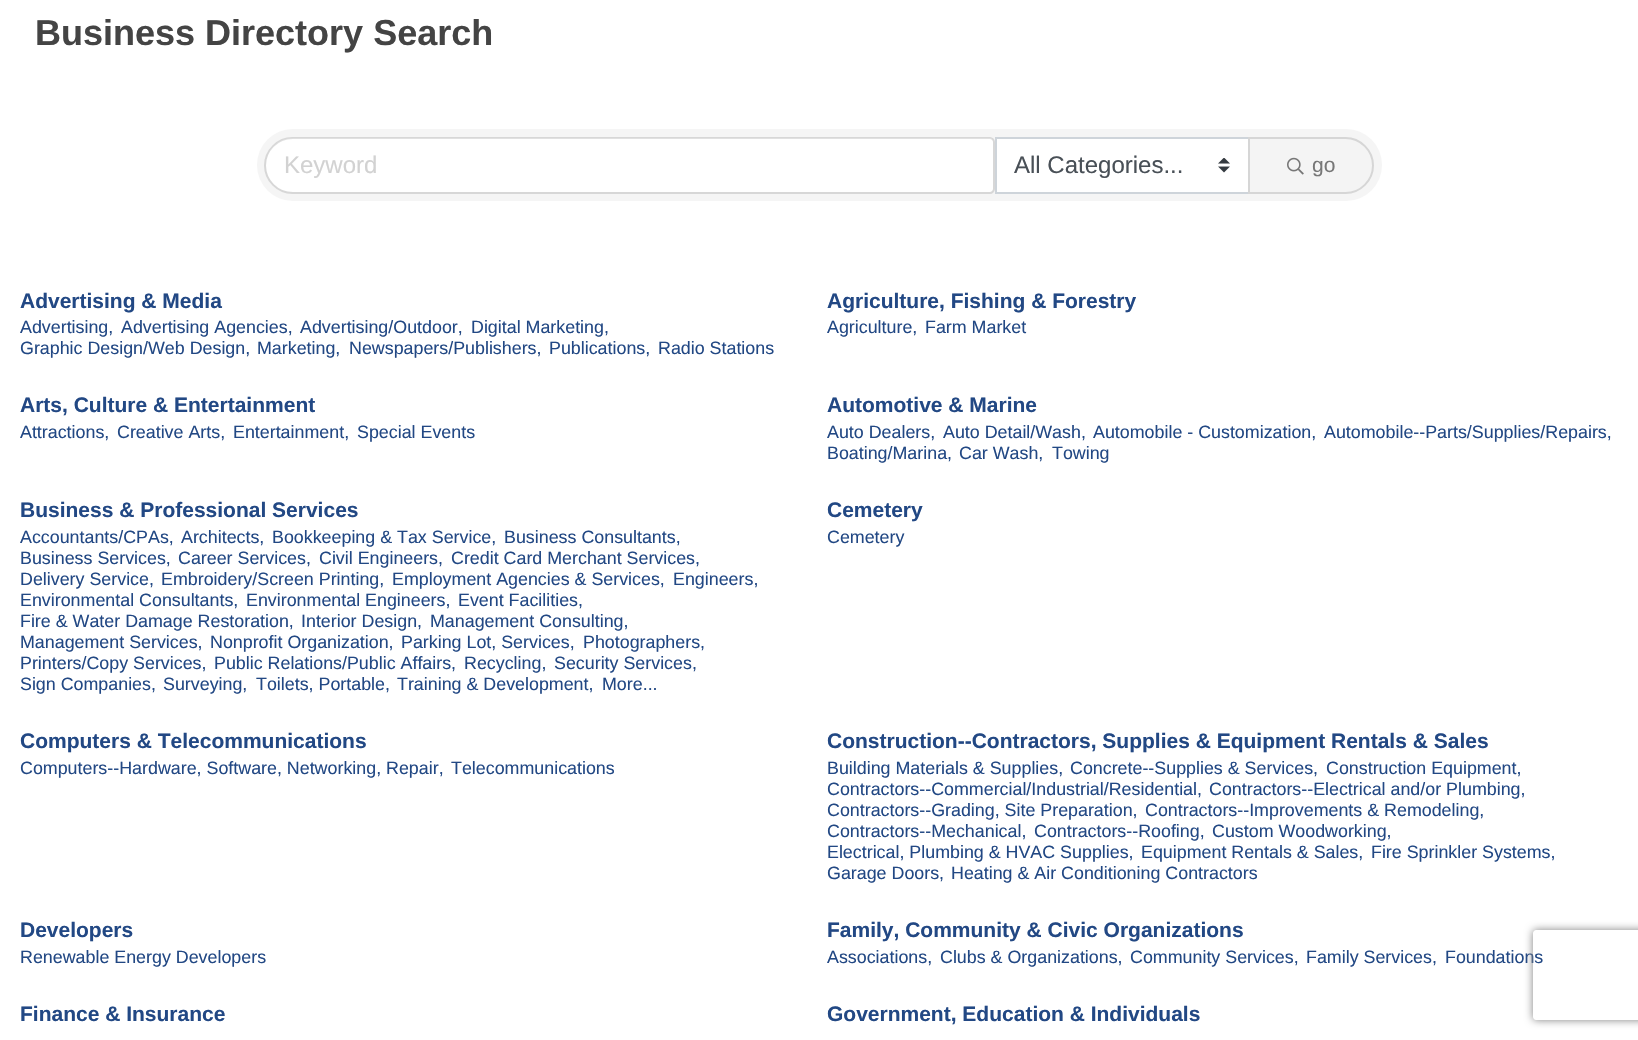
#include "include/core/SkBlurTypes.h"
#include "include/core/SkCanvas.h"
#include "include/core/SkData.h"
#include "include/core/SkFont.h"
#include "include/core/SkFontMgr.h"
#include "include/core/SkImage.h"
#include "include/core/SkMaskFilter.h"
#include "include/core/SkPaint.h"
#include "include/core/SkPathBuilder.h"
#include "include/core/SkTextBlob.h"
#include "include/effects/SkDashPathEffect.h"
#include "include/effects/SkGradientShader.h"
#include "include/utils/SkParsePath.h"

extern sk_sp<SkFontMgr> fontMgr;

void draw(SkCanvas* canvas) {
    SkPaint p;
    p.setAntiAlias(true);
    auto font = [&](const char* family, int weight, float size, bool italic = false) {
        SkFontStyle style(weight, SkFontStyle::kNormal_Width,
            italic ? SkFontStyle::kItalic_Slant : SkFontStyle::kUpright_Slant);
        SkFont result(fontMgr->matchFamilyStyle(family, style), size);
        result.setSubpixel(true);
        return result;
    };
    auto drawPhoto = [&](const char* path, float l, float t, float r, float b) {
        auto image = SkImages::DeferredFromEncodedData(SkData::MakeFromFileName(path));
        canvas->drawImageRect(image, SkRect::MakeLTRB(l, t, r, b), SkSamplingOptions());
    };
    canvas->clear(0xFFFFFFFF);
    auto font1 = font("Liberation Sans", 700, 36);
    p.setColor(0xFF444444);
    canvas->drawString("Business Directory Search", 35, 45, font1, p);
    p.setColor(0xFFF5F5F5);
    canvas->drawRoundRect(SkRect::MakeLTRB(257, 129, 1382, 201), 36, 36, p);
    p.setColor(0xFFFFFFFF);
    canvas->drawPath(SkPathBuilder().moveTo(293, 138).lineTo(990, 138).cubicTo(991.5f, 138, 993, 139.5f, 993, 141).lineTo(993, 189).cubicTo(993, 190.5f, 991.5f, 192, 990, 192).lineTo(293, 192).cubicTo(278, 192, 266, 180, 266, 165).cubicTo(266, 150, 278, 138, 293, 138).close().detach(), p);
    p.setStyle(SkPaint::kStroke_Style);
    p.setStrokeWidth(2);
    p.setColor(0x1F000000);
    canvas->drawPath(SkPathBuilder().moveTo(292.5f, 138).lineTo(990, 138).cubicTo(992, 138, 994, 140, 994, 142).lineTo(994, 189).cubicTo(994, 191, 992, 193, 990, 193).lineTo(292.5f, 193).cubicTo(277.5f, 193, 265, 180.5f, 265, 165.5f).cubicTo(265, 150.5f, 277.5f, 138, 292.5f, 138).close().detach(), p);
    auto font2 = font("Liberation Sans", 400, 24);
    p.setStyle(SkPaint::kFill_Style);
    p.setColor(0xFFD2D2D2);
    canvas->drawString("Keyword", 284, 173, font2, p);
    p.setColor(0xFFFFFFFF);
    canvas->drawRect(SkRect::MakeLTRB(997, 139, 1248, 192), p);
    drawPhoto("media/1.png", 1218, 158, 1230, 173);
    p.setStyle(SkPaint::kStroke_Style);
    p.setColor(0xFFCED4DA);
    canvas->drawRect(SkRect::MakeLTRB(996, 138, 1249, 193), p);
    p.setStyle(SkPaint::kFill_Style);
    p.setColor(0xFF495057);
    canvas->drawString("All Categories...", 1014, 173, font2, p);
    p.setColor(0xFFF4F4F4);
    canvas->drawPath(SkPathBuilder().moveTo(1249, 138).lineTo(1345.5f, 138).cubicTo(1360.5f, 138, 1373, 150.5f, 1373, 165.5f).cubicTo(1373, 180.5f, 1360.5f, 193, 1345.5f, 193).lineTo(1249, 193).close().detach(), p);
    p.setStyle(SkPaint::kStroke_Style);
    p.setColor(0xFFD6D6D6);
    canvas->drawPath(SkPathBuilder().moveTo(1249, 138).lineTo(1345.5f, 138).cubicTo(1360.5f, 138, 1373, 150.5f, 1373, 165.5f).cubicTo(1373, 180.5f, 1360.5f, 193, 1345.5f, 193).lineTo(1249, 193).close().detach(), p);
    drawPhoto("media/2.png", 1287, 157, 1304, 175);
    auto font3 = font("Liberation Sans", 400, 21);
    p.setStyle(SkPaint::kFill_Style);
    p.setColor(0xFF777777);
    canvas->drawString("go", 1312, 172, font3, p);
    auto font4 = font("Liberation Sans", 700, 21);
    p.setColor(0xFF224884);
    canvas->drawString("Advertising & Media", 20, 308, font4, p);
    auto font5 = font("Liberation Sans", 400, 17.85f);
    {
        const struct { const char* s; float x, y; } items[] = {
            {"Advertising,", 20, 333},
            {"Advertising Agencies,", 121, 333},
            {"Advertising/Outdoor,", 300, 333},
            {"Digital Marketing,", 471, 333},
            {"Graphic Design/Web Design,", 20, 354},
            {"Marketing,", 257, 354},
            {"Newspapers/Publishers,", 349, 354},
            {"Publications,", 549, 354},
            {"Radio Stations", 658, 354},
        };
        for (auto [s, x, y] : items) {
            canvas->drawString(s, x, y, font5, p);
        }
    }
    canvas->drawString("Agriculture, Fishing & Forestry", 827, 308, font4, p);
    canvas->drawString("Agriculture,", 827, 333, font5, p);
    canvas->drawString("Farm Market", 925, 333, font5, p);
    canvas->drawString("Arts, Culture & Entertainment", 20, 412, font4, p);
    {
        const struct { const char* s; float x, y; } items[] = {
            {"Attractions,", 20, 438},
            {"Creative Arts,", 117, 438},
            {"Entertainment,", 233, 438},
            {"Special Events", 357, 438},
        };
        for (auto [s, x, y] : items) {
            canvas->drawString(s, x, y, font5, p);
        }
    }
    canvas->drawString("Automotive & Marine", 827, 412, font4, p);
    {
        const struct { const char* s; float x, y; } items[] = {
            {"Auto Dealers,", 827, 438},
            {"Auto Detail/Wash,", 943, 438},
            {"Automobile - Customization,", 1093, 438},
            {"Automobile--Parts/Supplies/Repairs,", 1324, 438},
            {"Boating/Marina,", 827, 459},
            {"Car Wash,", 959, 459},
            {"Towing", 1052, 459},
        };
        for (auto [s, x, y] : items) {
            canvas->drawString(s, x, y, font5, p);
        }
    }
    canvas->drawString("Business & Professional Services", 20, 517, font4, p);
    {
        const struct { const char* s; float x, y; } items[] = {
            {"Accountants/CPAs,", 20, 543},
            {"Architects,", 181, 543},
            {"Bookkeeping & Tax Service,", 272, 543},
            {"Business Consultants,", 504, 543},
            {"Business Services,", 20, 564},
            {"Career Services,", 178, 564},
            {"Civil Engineers,", 319, 564},
            {"Credit Card Merchant Services,", 451, 564},
            {"Delivery Service,", 20, 585},
            {"Embroidery/Screen Printing,", 161, 585},
            {"Employment Agencies & Services,", 392, 585},
            {"Engineers,", 673, 585},
            {"Environmental Consultants,", 20, 606},
            {"Environmental Engineers,", 246, 606},
            {"Event Facilities,", 458, 606},
            {"Fire & Water Damage Restoration,", 20, 627},
            {"Interior Design,", 301, 627},
            {"Management Consulting,", 430, 627},
            {"Management Services,", 20, 648},
            {"Nonprofit Organization,", 210, 648},
            {"Parking Lot, Services,", 401, 648},
            {"Photographers,", 583, 648},
            {"Printers/Copy Services,", 20, 669},
            {"Public Relations/Public Affairs,", 214, 669},
            {"Recycling,", 464, 669},
            {"Security Services,", 554, 669},
            {"Sign Companies,", 20, 690},
            {"Surveying,", 163, 690},
            {"Toilets, Portable,", 256, 690},
            {"Training & Development,", 397, 690},
            {"More...", 602, 690},
        };
        for (auto [s, x, y] : items) {
            canvas->drawString(s, x, y, font5, p);
        }
    }
    canvas->drawString("Cemetery", 827, 517, font4, p);
    canvas->drawString("Cemetery", 827, 543, font5, p);
    canvas->drawString("Computers & Telecommunications", 20, 748, font4, p);
    canvas->drawString("Computers--Hardware, Software, Networking, Repair,", 20, 774, font5, p);
    canvas->drawString("Telecommunications", 451, 774, font5, p);
    canvas->drawString("Construction--Contractors, Supplies & Equipment Rentals & Sales", 827, 748, font4, p);
    {
        const struct { const char* s; float x, y; } items[] = {
            {"Building Materials & Supplies,", 827, 774},
            {"Concrete--Supplies & Services,", 1070, 774},
            {"Construction Equipment,", 1326, 774},
            {"Contractors--Commercial/Industrial/Residential,", 827, 795},
            {"Contractors--Electrical and/or Plumbing,", 1209, 795},
            {"Contractors--Grading, Site Preparation,", 827, 816},
            {"Contractors--Improvements & Remodeling,", 1145, 816},
            {"Contractors--Mechanical,", 827, 837},
            {"Contractors--Roofing,", 1034, 837},
            {"Custom Woodworking,", 1212, 837},
            {"Electrical, Plumbing & HVAC Supplies,", 827, 858},
            {"Equipment Rentals & Sales,", 1141, 858},
            {"Fire Sprinkler Systems,", 1371, 858},
            {"Garage Doors,", 827, 879},
            {"Heating & Air Conditioning Contractors", 951, 879},
        };
        for (auto [s, x, y] : items) {
            canvas->drawString(s, x, y, font5, p);
        }
    }
    canvas->drawString("Developers", 20, 937, font4, p);
    canvas->drawString("Renewable Energy Developers", 20, 963, font5, p);
    canvas->drawString("Family, Community & Civic Organizations", 827, 937, font4, p);
    {
        const struct { const char* s; float x, y; } items[] = {
            {"Associations,", 827, 963},
            {"Clubs & Organizations,", 940, 963},
            {"Community Services,", 1130, 963},
            {"Family Services,", 1306, 963},
            {"Foundations", 1445, 963},
        };
        for (auto [s, x, y] : items) {
            canvas->drawString(s, x, y, font5, p);
        }
    }
    canvas->drawString("Finance & Insurance", 20, 1021, font4, p);
    canvas->drawString("Government, Education & Individuals", 827, 1021, font4, p);
    canvas->save();
    canvas->clipPath(SkPathBuilder(SkPathFillType::kEvenOdd).moveTo(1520, 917).lineTo(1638, 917).lineTo(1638, 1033).lineTo(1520, 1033).close().moveTo(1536, 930).lineTo(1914, 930).cubicTo(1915.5f, 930, 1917, 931.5f, 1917, 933).lineTo(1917, 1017).cubicTo(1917, 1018.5f, 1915.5f, 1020, 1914, 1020).lineTo(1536, 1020).cubicTo(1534.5f, 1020, 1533, 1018.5f, 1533, 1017).lineTo(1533, 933).cubicTo(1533, 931.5f, 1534.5f, 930, 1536, 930).close().detach(), true);
    p.setColor(0xFF808080);
    p.setMaskFilter(SkMaskFilter::MakeBlur(kNormal_SkBlurStyle, 4));
    canvas->drawRoundRect(SkRect::MakeLTRB(1533, 930, 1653, 1020), 3, 3, p);
    p.setMaskFilter(nullptr);
    canvas->restore();
}
